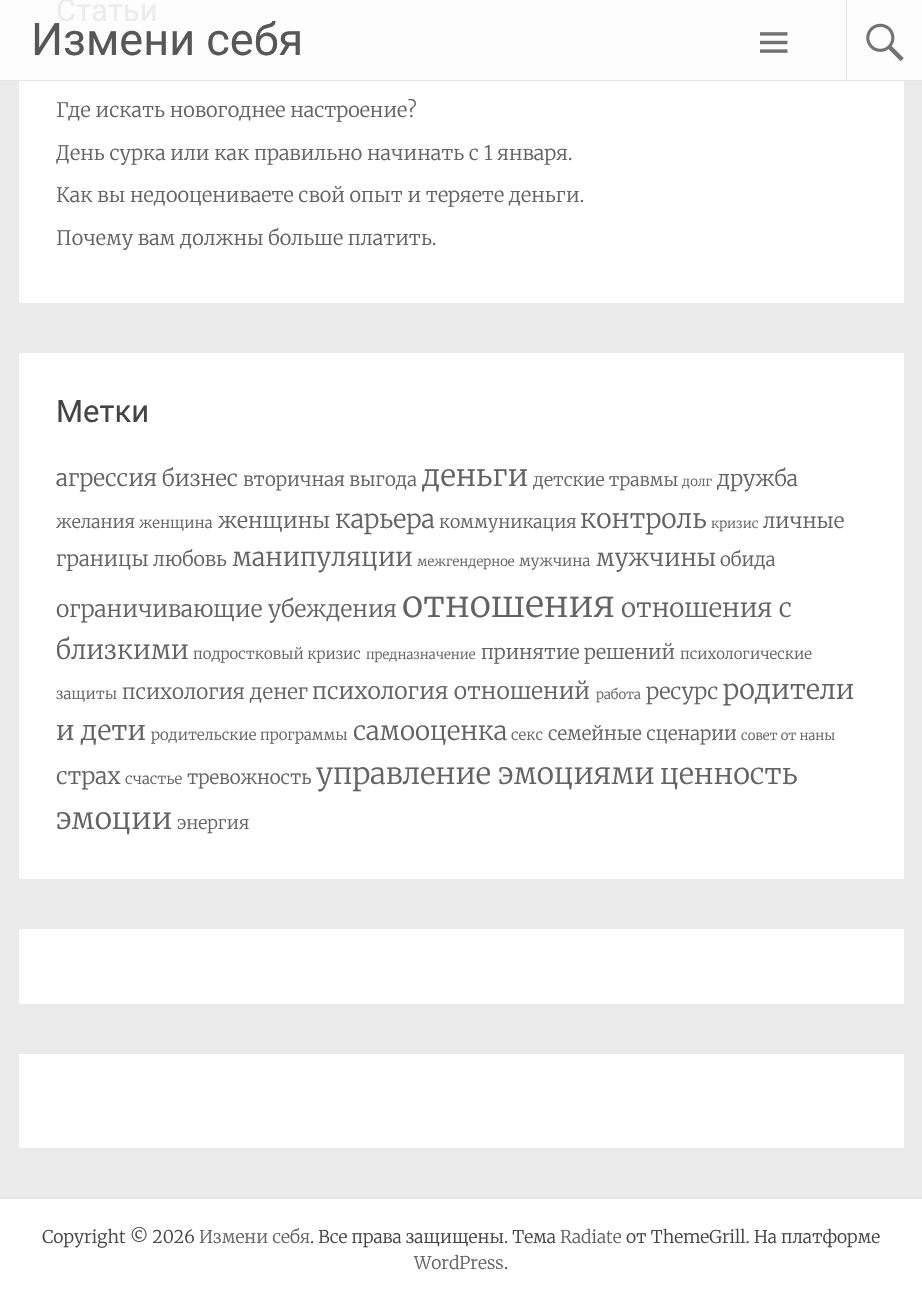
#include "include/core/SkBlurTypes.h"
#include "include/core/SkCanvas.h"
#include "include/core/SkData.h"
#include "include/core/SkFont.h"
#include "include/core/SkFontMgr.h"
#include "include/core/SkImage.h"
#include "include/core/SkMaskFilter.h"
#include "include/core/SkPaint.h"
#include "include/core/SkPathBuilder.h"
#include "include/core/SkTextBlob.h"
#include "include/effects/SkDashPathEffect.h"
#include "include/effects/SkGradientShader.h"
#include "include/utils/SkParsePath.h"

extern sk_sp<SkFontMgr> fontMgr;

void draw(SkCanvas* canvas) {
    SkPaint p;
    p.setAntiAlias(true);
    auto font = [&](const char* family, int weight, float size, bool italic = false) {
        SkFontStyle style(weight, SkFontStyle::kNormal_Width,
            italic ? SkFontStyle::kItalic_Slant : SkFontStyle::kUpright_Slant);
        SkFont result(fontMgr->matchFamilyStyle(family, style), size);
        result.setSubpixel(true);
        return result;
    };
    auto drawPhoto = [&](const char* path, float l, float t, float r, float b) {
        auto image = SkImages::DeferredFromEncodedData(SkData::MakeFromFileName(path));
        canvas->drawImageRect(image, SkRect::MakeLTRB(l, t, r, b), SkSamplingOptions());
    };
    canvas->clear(0xFFEAEAEA);
    p.setColor(0xFFFDFDFD);
    canvas->drawRect(SkRect::MakeLTRB(0, 0, 922, 80), p);
    p.setColor(0xFFFFFFFF);
    canvas->drawRect(SkRect::MakeLTRB(19, 81, 904, 303), p);
    auto font1 = font("Roboto", 400, 31);
    p.setColor(0xFFECECEC);
    canvas->drawString("Статьи", 56, 21, font1, p);
    auto font2 = font("Merriweather", 300, 20);
    p.setColor(0xFF636363);
    {
        const struct { const char* s; float x, y; } items[] = {
            {"Где искать новогоднее настроение?", 56, 117},
            {"День сурка или как правильно начинать с 1 января.", 56, 160},
            {"Как вы недооцениваете свой опыт и теряете деньги.", 56, 202},
            {"Почему вам должны больше платить.", 56, 245},
        };
        for (auto [s, x, y] : items) {
            canvas->drawString(s, x, y, font2, p);
        }
    }
    p.setColor(0xFFFFFFFF);
    canvas->drawRect(SkRect::MakeLTRB(19, 353, 904, 879), p);
    p.setColor(0xFF444444);
    canvas->drawString("Метки", 56, 422, font1, p);
    auto font3 = font("Merriweather", 300, 23);
    p.setColor(0xFF636363);
    canvas->drawString("агрессия", 56, 486, font3, p);
    auto font4 = font("Merriweather", 300, 22);
    canvas->drawString("бизнес", 162, 486, font4, p);
    auto font5 = font("Merriweather", 300, 18.75f);
    canvas->drawString("вторичная выгода", 243, 486, font5, p);
    auto font6 = font("Merriweather", 300, 30);
    canvas->drawString("деньги", 422, 486, font6, p);
    auto font7 = font("Merriweather", 300, 17.75f);
    canvas->drawString("детские травмы", 533, 486, font7, p);
    auto font8 = font("Merriweather", 300, 13.25f);
    canvas->drawString("долг", 682, 486, font8, p);
    auto font9 = font("Merriweather", 300, 21.5f);
    canvas->drawString("дружба", 717, 486, font9, p);
    canvas->drawString("желания", 56, 528, font7, p);
    auto font10 = font("Merriweather", 300, 15);
    canvas->drawString("женщина", 139, 528, font10, p);
    canvas->drawString("женщины", 218, 528, font9, p);
    auto font11 = font("Merriweather", 300, 25.5f);
    canvas->drawString("карьера", 335, 528, font11, p);
    canvas->drawString("коммуникация", 439, 528, font7, p);
    auto font12 = font("Merriweather", 300, 26.5f);
    canvas->drawString("контроль", 580, 528, font12, p);
    canvas->drawString("кризис", 711, 528, font8, p);
    auto font13 = font("Merriweather", 300, 20.75f);
    canvas->drawString("личные", 763, 528, font13, p);
    canvas->drawString("границы", 56, 566, font13, p);
    auto font14 = font("Merriweather", 300, 19.75f);
    canvas->drawString("любовь", 153, 566, font14, p);
    canvas->drawString("манипуляции", 232, 566, font11, p);
    canvas->drawString("межгендерное", 417, 566, font8, p);
    canvas->drawString("мужчина", 519, 566, font10, p);
    auto font15 = font("Merriweather", 300, 23.75f);
    canvas->drawString("мужчины", 596, 566, font15, p);
    canvas->drawString("обида", 720, 566, font5, p);
    canvas->drawString("ограничивающие убеждения", 56, 617, font3, p);
    auto font16 = font("Merriweather", 300, 36.5f);
    canvas->drawString("отношения", 402, 617, font16, p);
    auto font17 = font("Merriweather", 300, 26);
    canvas->drawString("отношения с", 621, 617, font17, p);
    canvas->drawString("близкими", 56, 659, font17, p);
    canvas->drawString("подростковый кризис", 193, 659, font10, p);
    canvas->drawString("предназначение", 366, 659, font8, p);
    canvas->drawString("принятие решений", 481, 659, font14, p);
    canvas->drawString("психологические", 680, 659, font10, p);
    canvas->drawString("защиты", 56, 699, font10, p);
    canvas->drawString("психология денег", 122, 699, font13, p);
    canvas->drawString("психология отношений", 312, 699, font3, p);
    canvas->drawString("работа", 596, 699, font8, p);
    canvas->drawString("ресурс", 646, 699, font4, p);
    auto font18 = font("Merriweather", 300, 27);
    canvas->drawString("родители", 723, 699, font18, p);
    canvas->drawString("и дети", 56, 740, font18, p);
    canvas->drawString("родительские программы", 151, 740, font10, p);
    canvas->drawString("самооценка", 353, 740, font17, p);
    canvas->drawString("секс", 511, 740, font10, p);
    canvas->drawString("семейные сценарии", 548, 740, font5, p);
    canvas->drawString("совет от наны", 741, 740, font8, p);
    canvas->drawString("страх", 56, 784, font3, p);
    canvas->drawString("счастье", 125, 784, font10, p);
    canvas->drawString("тревожность", 187, 784, font5, p);
    auto font19 = font("Merriweather", 300, 29.75f);
    canvas->drawString("управление эмоциями", 316, 784, font19, p);
    auto font20 = font("Merriweather", 300, 29);
    canvas->drawString("ценность", 660, 784, font20, p);
    canvas->drawString("эмоции", 56, 829, font19, p);
    canvas->drawString("энергия", 177, 829, font7, p);
    {
        const struct { float l, t, r, b; SkColor color; } items[] = {
            {19, 929, 904, 1004, 0xFFFFFFFF},
            {19, 1054, 904, 1148, 0xFFFFFFFF},
            {0, 80, 922, 81, 0xFFE4E7E8},
        };
        for (auto [l, t, r, b, color] : items) {
            p.setColor(color);
            canvas->drawRect(SkRect::MakeLTRB(l, t, r, b), p);
        }
    }
    auto font21 = font("Roboto", 400, 45);
    p.setColor(0xFF575757);
    canvas->drawString("Измени себя", 31, 55, font21, p);
    drawPhoto("media/1.png", 760, 32, 788, 53);
    p.setColor(0xFFE4E7E9);
    canvas->drawRect(SkRect::MakeLTRB(846, 0, 847, 80), p);
    drawPhoto("media/2.png", 866, 23, 904, 62);
    p.setColor(0xFFFFFFFF);
    canvas->drawRect(SkRect::MakeLTRB(0, 1199, 922, 1301), p);
    p.setColor(0xFFE1E4E6);
    canvas->drawRect(SkRect::MakeLTRB(0, 1198, 922, 1199), p);
    auto font22 = font("Merriweather", 300, 17.5f);
    p.setColor(0xFF444444);
    canvas->drawString("Copyright © 2026", 42, 1243, font22, p);
    p.setColor(0xFF636363);
    canvas->drawString("Измени себя", 199, 1243, font22, p);
    p.setColor(0xFF444444);
    canvas->drawString(". Все права защищены. Тема", 310, 1243, font22, p);
    p.setColor(0xFF636363);
    canvas->drawString("Radiate", 560, 1243, font22, p);
    p.setColor(0xFF444444);
    canvas->drawString("от ThemeGrill. На платформе", 626, 1243, font22, p);
    p.setColor(0xFF636363);
    canvas->drawString("WordPress", 414, 1269, font22, p);
    p.setColor(0xFF444444);
    canvas->drawString(".", 504, 1269, font22, p);
}
